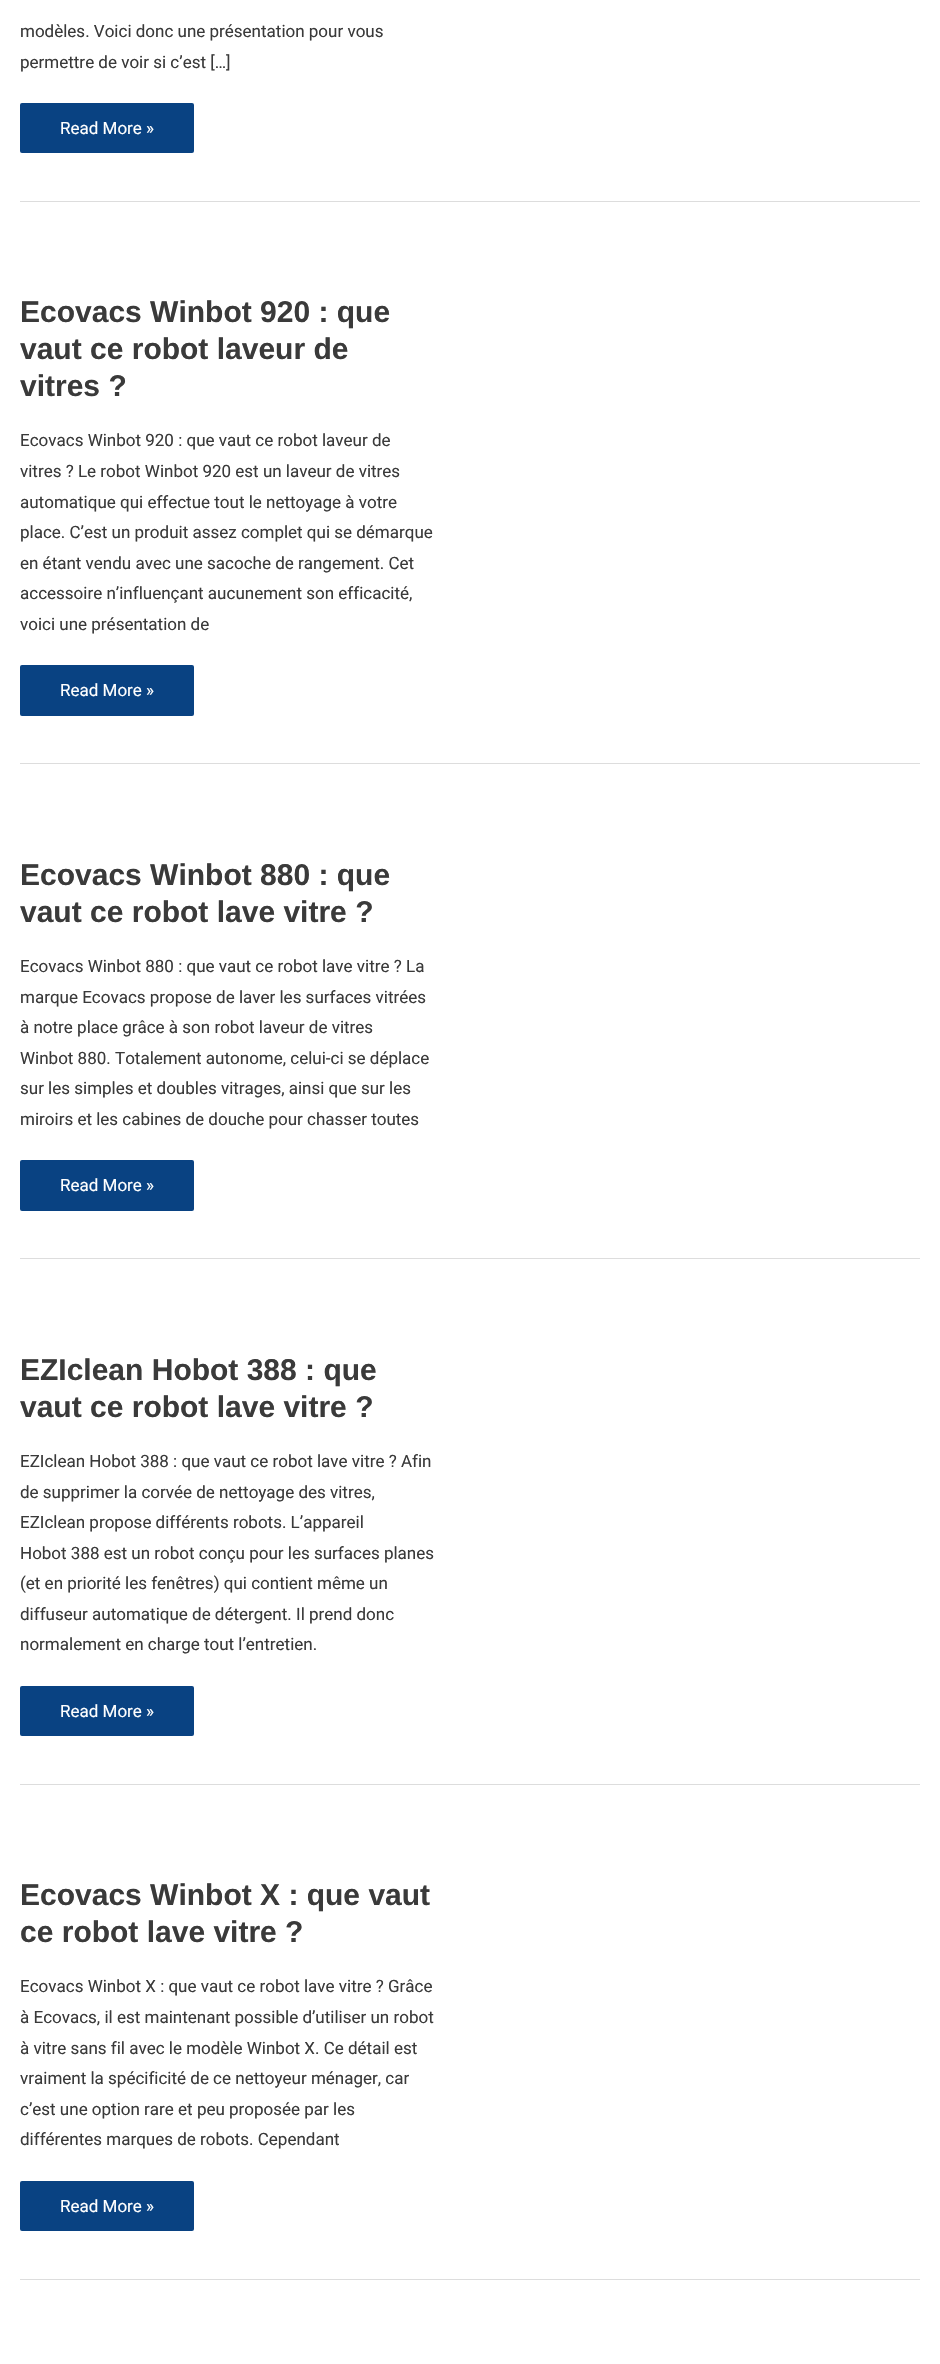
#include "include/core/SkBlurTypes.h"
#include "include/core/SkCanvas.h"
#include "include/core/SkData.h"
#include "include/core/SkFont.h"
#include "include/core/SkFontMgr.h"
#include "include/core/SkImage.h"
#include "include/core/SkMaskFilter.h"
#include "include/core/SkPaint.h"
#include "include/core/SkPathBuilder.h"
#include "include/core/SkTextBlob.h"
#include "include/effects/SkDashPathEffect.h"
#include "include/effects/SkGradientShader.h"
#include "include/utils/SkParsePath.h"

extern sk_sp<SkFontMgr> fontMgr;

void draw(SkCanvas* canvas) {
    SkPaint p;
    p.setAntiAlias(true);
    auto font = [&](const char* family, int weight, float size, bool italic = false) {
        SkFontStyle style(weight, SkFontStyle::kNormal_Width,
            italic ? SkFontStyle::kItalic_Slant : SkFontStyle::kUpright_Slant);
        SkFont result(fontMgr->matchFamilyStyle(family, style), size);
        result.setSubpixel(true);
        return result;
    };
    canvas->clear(0xFFFFFFFF);
    p.setColor(0xFFDDDDDD);
    canvas->drawRect(SkRect::MakeLTRB(20, 201, 920, 202), p);
    auto font1 = font("Roboto", 400, 17);
    p.setColor(0xFF3A3A3A);
    canvas->drawString("modèles. Voici donc une présentation pour vous", 20, 37, font1, p);
    canvas->drawString("permettre de voir si c’est […]", 20, 68, font1, p);
    p.setColor(0xFF094282);
    canvas->drawRoundRect(SkRect::MakeLTRB(20, 103, 194, 153), 2, 2, p);
    p.setColor(0xFFFFFFFF);
    canvas->drawString("Read More »", 60, 134, font1, p);
    p.setColor(0xFFDDDDDD);
    canvas->drawRect(SkRect::MakeLTRB(20, 763, 920, 764), p);
    auto font2 = font("Arimo", 700, 30);
    p.setColor(0xFF3A3A3A);
    {
        const struct { const char* s; float x, y; } items[] = {
            {"Ecovacs Winbot 920 : que", 20, 322},
            {"vaut ce robot laveur de", 20, 359},
            {"vitres ?", 20, 396},
        };
        for (auto [s, x, y] : items) {
            canvas->drawString(s, x, y, font2, p);
        }
    }
    {
        const struct { const char* s; float x, y; } items[] = {
            {"Ecovacs Winbot 920 : que vaut ce robot laveur de", 20, 446},
            {"vitres ? Le robot Winbot 920 est un laveur de vitres", 20, 477},
            {"automatique qui effectue tout le nettoyage à votre", 20, 508},
            {"place. C’est un produit assez complet qui se démarque", 20, 538},
            {"en étant vendu avec une sacoche de rangement. Cet", 20, 569},
            {"accessoire n’influençant aucunement son efficacité,", 20, 599},
            {"voici une présentation de", 20, 630},
        };
        for (auto [s, x, y] : items) {
            canvas->drawString(s, x, y, font1, p);
        }
    }
    p.setColor(0xFF094282);
    canvas->drawRoundRect(SkRect::MakeLTRB(20, 665, 194, 716), 2, 2, p);
    p.setColor(0xFFFFFFFF);
    canvas->drawString("Read More »", 60, 696, font1, p);
    p.setColor(0xFFDDDDDD);
    canvas->drawRect(SkRect::MakeLTRB(20, 1258, 920, 1259), p);
    p.setColor(0xFF3A3A3A);
    canvas->drawString("Ecovacs Winbot 880 : que", 20, 885, font2, p);
    canvas->drawString("vaut ce robot lave vitre ?", 20, 922, font2, p);
    {
        const struct { const char* s; float x, y; } items[] = {
            {"Ecovacs Winbot 880 : que vaut ce robot lave vitre ? La", 20, 972},
            {"marque Ecovacs propose de laver les surfaces vitrées", 20, 1003},
            {"à notre place grâce à son robot laveur de vitres", 20, 1033},
            {"Winbot 880. Totalement autonome, celui-ci se déplace", 20, 1064},
            {"sur les simples et doubles vitrages, ainsi que sur les", 20, 1094},
            {"miroirs et les cabines de douche pour chasser toutes", 20, 1125},
        };
        for (auto [s, x, y] : items) {
            canvas->drawString(s, x, y, font1, p);
        }
    }
    p.setColor(0xFF094282);
    canvas->drawRoundRect(SkRect::MakeLTRB(20, 1160, 194, 1211), 2, 2, p);
    p.setColor(0xFFFFFFFF);
    canvas->drawString("Read More »", 60, 1191, font1, p);
    p.setColor(0xFFDDDDDD);
    canvas->drawRect(SkRect::MakeLTRB(20, 1784, 920, 1785), p);
    p.setColor(0xFF3A3A3A);
    canvas->drawString("EZIclean Hobot 388 : que", 20, 1380, font2, p);
    canvas->drawString("vaut ce robot lave vitre ?", 20, 1417, font2, p);
    {
        const struct { const char* s; float x, y; } items[] = {
            {"EZIclean Hobot 388 : que vaut ce robot lave vitre ? Afin", 20, 1467},
            {"de supprimer la corvée de nettoyage des vitres,", 20, 1498},
            {"EZIclean propose différents robots. L’appareil", 20, 1528},
            {"Hobot 388 est un robot conçu pour les surfaces planes", 20, 1559},
            {"(et en priorité les fenêtres) qui contient même un", 20, 1589},
            {"diffuseur automatique de détergent. Il prend donc", 20, 1620},
            {"normalement en charge tout l’entretien.", 20, 1650},
        };
        for (auto [s, x, y] : items) {
            canvas->drawString(s, x, y, font1, p);
        }
    }
    p.setColor(0xFF094282);
    canvas->drawRoundRect(SkRect::MakeLTRB(20, 1686, 194, 1736), 2, 2, p);
    p.setColor(0xFFFFFFFF);
    canvas->drawString("Read More »", 60, 1717, font1, p);
    p.setColor(0xFFDDDDDD);
    canvas->drawRect(SkRect::MakeLTRB(20, 2279, 920, 2280), p);
    p.setColor(0xFF3A3A3A);
    canvas->drawString("Ecovacs Winbot X : que vaut", 20, 1905, font2, p);
    canvas->drawString("ce robot lave vitre ?", 20, 1942, font2, p);
    {
        const struct { const char* s; float x, y; } items[] = {
            {"Ecovacs Winbot X : que vaut ce robot lave vitre ? Grâce", 20, 1992},
            {"à Ecovacs, il est maintenant possible d’utiliser un robot", 20, 2023},
            {"à vitre sans fil avec le modèle Winbot X. Ce détail est", 20, 2054},
            {"vraiment la spécificité de ce nettoyeur ménager, car", 20, 2084},
            {"c’est une option rare et peu proposée par les", 20, 2115},
            {"différentes marques de robots. Cependant", 20, 2145},
        };
        for (auto [s, x, y] : items) {
            canvas->drawString(s, x, y, font1, p);
        }
    }
    p.setColor(0xFF094282);
    canvas->drawRoundRect(SkRect::MakeLTRB(20, 2181, 194, 2231), 2, 2, p);
    p.setColor(0xFFFFFFFF);
    canvas->drawString("Read More »", 60, 2212, font1, p);
}
